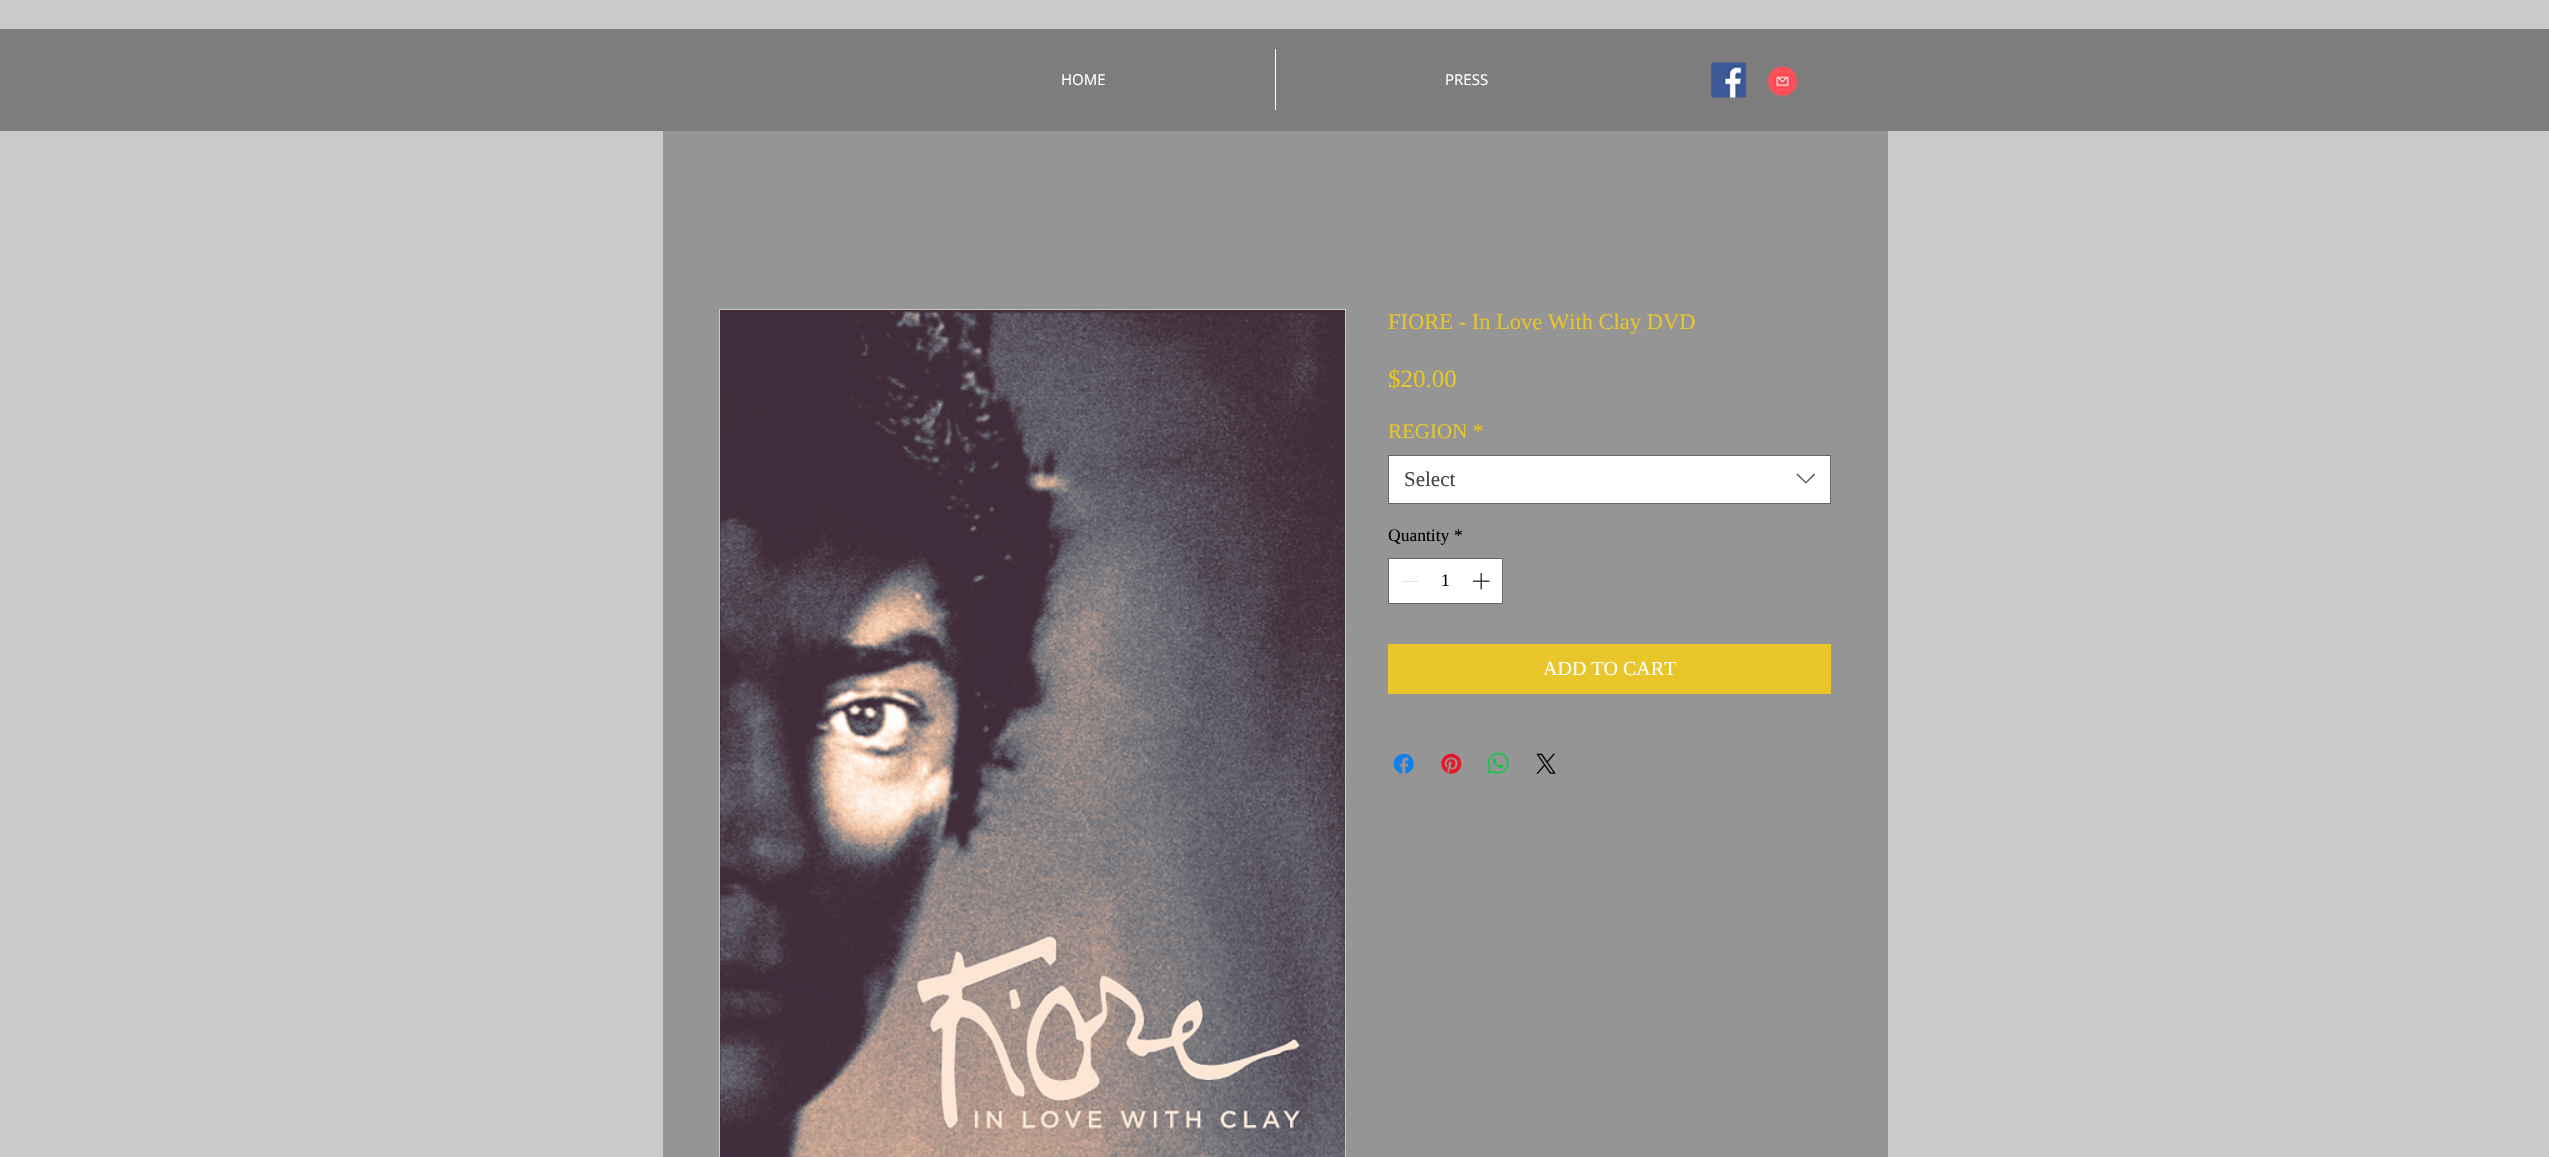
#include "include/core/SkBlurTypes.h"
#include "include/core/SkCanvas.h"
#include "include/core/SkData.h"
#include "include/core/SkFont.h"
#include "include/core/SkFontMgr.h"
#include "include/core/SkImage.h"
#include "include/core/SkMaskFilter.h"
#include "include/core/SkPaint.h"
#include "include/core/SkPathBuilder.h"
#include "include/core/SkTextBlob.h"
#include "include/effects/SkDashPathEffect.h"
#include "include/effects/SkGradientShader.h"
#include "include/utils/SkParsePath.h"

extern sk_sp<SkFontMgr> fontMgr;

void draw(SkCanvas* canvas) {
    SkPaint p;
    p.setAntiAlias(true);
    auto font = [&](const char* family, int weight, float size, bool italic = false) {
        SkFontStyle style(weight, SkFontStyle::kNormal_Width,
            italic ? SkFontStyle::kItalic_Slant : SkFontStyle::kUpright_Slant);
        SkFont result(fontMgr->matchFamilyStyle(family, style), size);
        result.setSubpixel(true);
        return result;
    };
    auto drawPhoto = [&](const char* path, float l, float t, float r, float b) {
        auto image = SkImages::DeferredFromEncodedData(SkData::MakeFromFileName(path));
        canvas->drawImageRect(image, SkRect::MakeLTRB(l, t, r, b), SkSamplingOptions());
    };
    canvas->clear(0xFFCACACA);
    p.setColor(0xFF7D7D7D);
    canvas->drawRect(SkRect::MakeLTRB(0, 29, 2549, 131), p);
    auto font1 = font("Open Sans", 400, 15);
    p.setColor(0xFFFFFFFF);
    canvas->drawString("HOME", 1061, 85, font1, p);
    canvas->drawRect(SkRect::MakeLTRB(1275, 49, 1276, 110), p);
    canvas->drawString("PRESS", 1445, 85, font1, p);
    drawPhoto("media/1.png", 1711, 62, 1747, 98);
    drawPhoto("media/2.png", 1767, 66, 1798, 97);
    p.setColor(0xFF959595);
    canvas->drawRect(SkRect::MakeLTRB(663, 131, 1888, 1157), p);
    p.setStyle(SkPaint::kStroke_Style);
    p.setStrokeWidth(1);
    p.setColor(0xFFCACACA);
    canvas->drawRect(SkRect::MakeLTRB(719.5f, 309.5f, 1345.5f, 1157.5f), p);
    drawPhoto("media/3.png", 720, 310, 1345, 1157);
    auto font2 = font("Liberation Serif", 400, 22.5f);
    p.setStyle(SkPaint::kFill_Style);
    p.setColor(0xFFE8C529);
    canvas->drawString("FIORE - In Love With Clay DVD", 1388, 329, font2, p);
    auto font3 = font("Liberation Serif", 400, 25);
    canvas->drawString("$20.00", 1388, 387, font3, p);
    auto font4 = font("Liberation Serif", 400, 21);
    canvas->drawString("REGION", 1388, 438, font4, p);
    canvas->drawString("*", 1473, 438, font4, p);
    p.setColor(0xFFFFFFFF);
    canvas->drawRect(SkRect::MakeLTRB(1388.5f, 455.5f, 1830.5f, 503.5f), p);
    p.setStyle(SkPaint::kStroke_Style);
    p.setColor(0xFF666666);
    canvas->drawRect(SkRect::MakeLTRB(1388.5f, 455.5f, 1830.5f, 503.5f), p);
    p.setStyle(SkPaint::kFill_Style);
    p.setColor(0xFF444444);
    canvas->drawString("Select", 1404, 486, font4, p);
    canvas->drawPath(SkPathBuilder(SkPathFillType::kEvenOdd).moveTo(1814, 473.5f).lineTo(1815, 474.5f).lineTo(1806, 483.5f).lineTo(1796.5f, 474.5f).lineTo(1797.5f, 473.5f).lineTo(1806, 482).close().detach(), p);
    auto font5 = font("Liberation Serif", 400, 17.5f);
    p.setColor(0xFF000000);
    canvas->drawString("Quantity", 1388, 541, font5, p);
    canvas->drawString("*", 1454, 541, font5, p);
    p.setColor(0xFFFFFFFF);
    canvas->drawRect(SkRect::MakeLTRB(1388.5f, 558.5f, 1502.5f, 603.5f), p);
    p.setStyle(SkPaint::kStroke_Style);
    p.setColor(0xFF666666);
    canvas->drawRect(SkRect::MakeLTRB(1388.5f, 558.5f, 1502.5f, 603.5f), p);
    p.setStyle(SkPaint::kFill_Style);
    p.setColor(0xFFE3E3E3);
    canvas->drawRect(SkRect::MakeLTRB(1402, 581, 1418, 582), p);
    p.setColor(0xFF000000);
    canvas->drawString("1", 1441, 586, font5, p);
    drawPhoto("media/4.png", 1473, 573, 1490, 590);
    p.setColor(0xFFE8C529);
    canvas->drawRect(SkRect::MakeLTRB(1388, 644, 1831, 694), p);
    auto font6 = font("Liberation Serif", 400, 20);
    p.setColor(0xFFFFFFFF);
    canvas->drawString("ADD TO CART", 1543, 675, font6, p);
    drawPhoto("media/5.png", 1393, 753, 1414, 774);
    drawPhoto("media/6.png", 1441, 753, 1462, 774);
    drawPhoto("media/7.png", 1487, 752, 1509, 774);
    drawPhoto("media/8.png", 1536, 753, 1556, 774);
}
